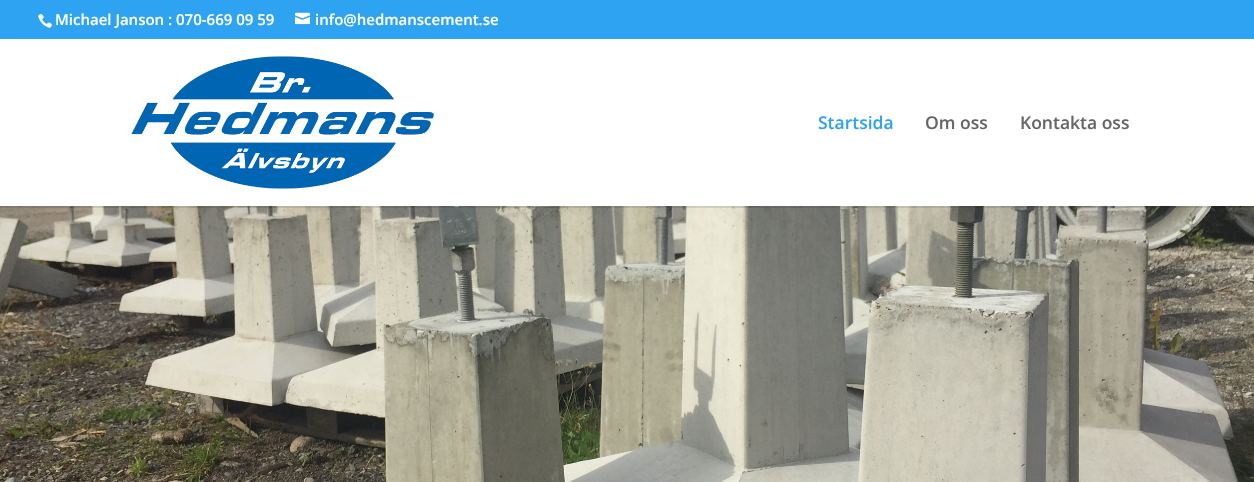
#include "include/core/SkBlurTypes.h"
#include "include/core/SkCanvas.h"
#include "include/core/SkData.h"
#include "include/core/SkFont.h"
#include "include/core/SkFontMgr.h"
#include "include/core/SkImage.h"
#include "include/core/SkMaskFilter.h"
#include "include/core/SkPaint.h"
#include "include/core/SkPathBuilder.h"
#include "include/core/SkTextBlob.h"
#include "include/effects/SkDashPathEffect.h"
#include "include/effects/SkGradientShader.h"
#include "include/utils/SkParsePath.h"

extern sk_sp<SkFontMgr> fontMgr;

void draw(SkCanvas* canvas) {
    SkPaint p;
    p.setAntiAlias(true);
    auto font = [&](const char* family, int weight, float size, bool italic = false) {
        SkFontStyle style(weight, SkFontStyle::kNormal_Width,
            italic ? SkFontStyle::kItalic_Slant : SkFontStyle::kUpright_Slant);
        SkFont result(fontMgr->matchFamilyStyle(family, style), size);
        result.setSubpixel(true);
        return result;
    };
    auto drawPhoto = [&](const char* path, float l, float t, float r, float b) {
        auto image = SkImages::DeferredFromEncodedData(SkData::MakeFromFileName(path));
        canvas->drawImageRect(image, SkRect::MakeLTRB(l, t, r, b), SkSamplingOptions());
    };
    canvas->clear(0xFFFFFFFF);
    p.setColor(0xFF2EA3F2);
    canvas->drawRect(SkRect::MakeLTRB(0, 0, 1254, 39), p);
    drawPhoto("media/1.png", 38, 14, 52, 28);
    auto font1 = font("Open Sans", 600, 15);
    p.setColor(0xFFFFFFFF);
    canvas->drawString("Michael Janson : 070-669 09 59", 55, 25, font1, p);
    drawPhoto("media/2.png", 295, 12, 310, 25);
    canvas->drawString("info@hedmanscement.se", 315, 25, font1, p);
    drawPhoto("media/4.png", 0, 206, 1254, 482);
    p.setColor(0x1A000000);
    canvas->drawRect(SkRect::MakeLTRB(0, 206, 1254, 208), p);
    drawPhoto("media/3.png", 131, 56, 434, 189);
    auto font2 = font("Open Sans", 600, 17.5f);
    p.setColor(0xFF2EA3F2);
    canvas->drawString("Startsida", 818, 129, font2, p);
    p.setColor(0xFF666666);
    canvas->drawString("Om oss", 925, 129, font2, p);
    canvas->drawString("Kontakta oss", 1020, 129, font2, p);
}
